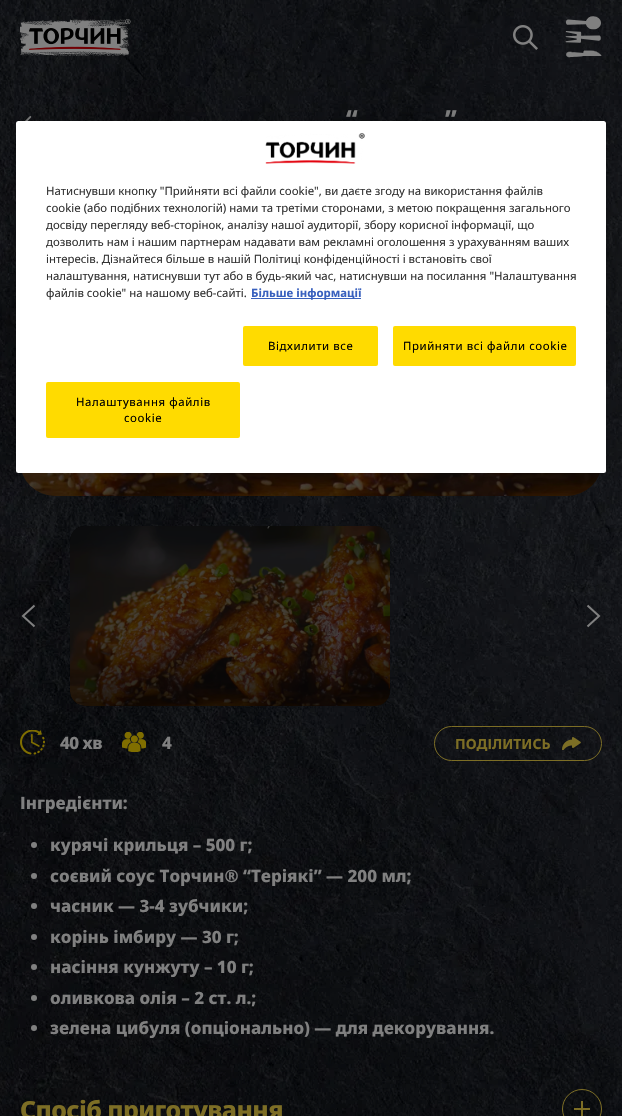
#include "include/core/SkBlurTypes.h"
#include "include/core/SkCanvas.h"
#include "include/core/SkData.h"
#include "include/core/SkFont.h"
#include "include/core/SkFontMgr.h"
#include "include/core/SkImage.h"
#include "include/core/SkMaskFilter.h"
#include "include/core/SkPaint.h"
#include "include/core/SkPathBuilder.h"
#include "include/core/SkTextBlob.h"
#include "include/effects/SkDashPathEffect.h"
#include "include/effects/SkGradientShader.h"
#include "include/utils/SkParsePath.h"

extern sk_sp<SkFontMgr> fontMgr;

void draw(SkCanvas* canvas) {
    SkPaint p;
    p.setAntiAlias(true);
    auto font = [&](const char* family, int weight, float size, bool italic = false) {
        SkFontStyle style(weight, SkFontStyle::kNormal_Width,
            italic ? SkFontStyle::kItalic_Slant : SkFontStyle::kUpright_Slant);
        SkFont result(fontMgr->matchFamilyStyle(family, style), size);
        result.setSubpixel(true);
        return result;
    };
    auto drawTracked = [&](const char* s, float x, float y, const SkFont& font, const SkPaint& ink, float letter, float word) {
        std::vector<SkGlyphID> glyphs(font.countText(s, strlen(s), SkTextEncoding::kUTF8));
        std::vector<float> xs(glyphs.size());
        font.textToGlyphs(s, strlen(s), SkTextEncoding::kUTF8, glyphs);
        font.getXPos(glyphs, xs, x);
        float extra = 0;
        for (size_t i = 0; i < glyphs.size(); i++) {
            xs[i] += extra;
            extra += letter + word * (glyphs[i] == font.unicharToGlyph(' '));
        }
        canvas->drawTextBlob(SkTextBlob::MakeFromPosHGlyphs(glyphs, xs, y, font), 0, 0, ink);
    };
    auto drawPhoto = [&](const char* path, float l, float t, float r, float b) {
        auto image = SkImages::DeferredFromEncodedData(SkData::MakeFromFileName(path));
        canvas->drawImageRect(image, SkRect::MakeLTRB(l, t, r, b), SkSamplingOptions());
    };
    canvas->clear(0xFFFFFFFF);
    drawPhoto("media/1.png", 0, 0, 622, 1116);
    drawPhoto("media/2.png", 20, 19, 131, 56);
    drawPhoto("media/3.png", 513, 25, 538, 50);
    drawPhoto("media/4.png", 565, 16, 602, 58);
    auto font1 = font("Noto Sans", 800, 25);
    p.setColor(0xFF808080);
    drawTracked("“", 346, 128, font1, p, -0.6f, 0);
    drawTracked("”", 445, 128, font1, p, -0.6f, 0);
    drawPhoto("media/5.png", 25, 116, 32, 121);
    drawPhoto("media/6.png", 22, 473, 600, 496);
    p.setStyle(SkPaint::kStroke_Style);
    p.setStrokeWidth(2);
    canvas->drawPath(SkPathBuilder().moveTo(34.5f, 626.5f).lineTo(23, 616).lineTo(34.5f, 605.5f).detach(), p);
    p.setStyle(SkPaint::kFill_Style);
    p.setColor(0xFF000000);
    canvas->drawRoundRect(SkRect::MakeLTRB(70, 526, 390, 706), 15, 15, p);
    drawPhoto("media/7.png", 70, 526, 390, 706);
    p.setStyle(SkPaint::kStroke_Style);
    p.setColor(0xFF808080);
    canvas->drawPath(SkPathBuilder().moveTo(587.5f, 605.5f).lineTo(599, 616).lineTo(587.5f, 626.5f).detach(), p);
    drawPhoto("media/8.png", 20, 730, 45, 755);
    auto font2 = font("Noto Sans", 800, 17);
    p.setStyle(SkPaint::kFill_Style);
    drawTracked("40 хв", 60, 749, font2, p, -0.5f, 0);
    drawPhoto("media/9.png", 122, 732, 146, 752);
    drawTracked("4", 162, 749, font2, p, -0.5f, 0);
    p.setStyle(SkPaint::kStroke_Style);
    p.setStrokeWidth(1);
    p.setColor(0xFF7D6E25);
    canvas->drawRoundRect(SkRect::MakeLTRB(434.5f, 726.5f, 601.5f, 760.5f), 17, 17, p);
    auto font3 = font("Noto Sans", 700, 14);
    p.setStyle(SkPaint::kFill_Style);
    canvas->drawString("ПОДІЛИТИСЬ", 455, 749, font3, p);
    drawPhoto("media/10.png", 562, 737, 581, 750);
    p.setColor(0xFF808080);
    canvas->drawString("Інгредієнти:", 20, 809, font2, p);
    canvas->drawCircle(34, 845, 3, p);
    canvas->drawString("курячі крильця – 500 г;", 50, 851, font2, p);
    canvas->drawCircle(34, 876, 3, p);
    canvas->drawString("соєвий соус Торчин® “Теріякі” — 200 мл;", 50, 882, font2, p);
    canvas->drawCircle(34, 906, 3, p);
    canvas->drawString("часник — 3-4 зубчики;", 50, 912, font2, p);
    canvas->drawCircle(34, 937, 3, p);
    canvas->drawString("корінь імбиру — 30 г;", 50, 943, font2, p);
    canvas->drawCircle(34, 967, 3, p);
    canvas->drawString("насіння кунжуту – 10 г;", 50, 973, font2, p);
    canvas->drawCircle(34, 998, 3, p);
    canvas->drawString("оливкова олія – 2 ст. л.;", 50, 1004, font2, p);
    canvas->drawCircle(34, 1028, 3, p);
    canvas->drawString("зелена цибуля (опціонально) — для декорування.", 50, 1034, font2, p);
    p.setColor(0xFF7D6E25);
    drawTracked("Спосіб приготування", 20, 1119, font1, p, -0.6f, 0);
    p.setStyle(SkPaint::kStroke_Style);
    canvas->drawCircle(582, 1109, 19.5f, p);
    p.setStyle(SkPaint::kFill_Style);
    canvas->drawRect(SkRect::MakeLTRB(574, 1108, 590, 1110), p);
    canvas->drawRect(SkRect::MakeLTRB(581, 1101, 583, 1116), p);
    p.setColor(0x33000000);
    p.setMaskFilter(SkMaskFilter::MakeBlur(kNormal_SkBlurStyle, 9));
    canvas->drawRoundRect(SkRect::MakeLTRB(16, 121, 606, 473), 2.5f, 2.5f, p);
    p.setMaskFilter(nullptr);
    p.setColor(0xFFFFFFFF);
    canvas->drawRoundRect(SkRect::MakeLTRB(16, 121, 606, 473), 2.5f, 2.5f, p);
    drawPhoto("media/11.png", 265, 133, 365, 164);
    auto font4 = font("Noto Sans", 400, 11.4f);
    p.setColor(0xFF333333);
    {
        const struct { const char* s; float x, y; } items[] = {
            {"Натиснувши кнопку \"Прийняти всі файли cookie\", ви даєте згоду на використання файлів", 46, 195},
            {"cookie (або подібних технологій) нами та третіми сторонами, з метою покращення загального", 46, 212},
            {"досвіду перегляду веб-сторінок, аналізу нашої аудиторії, збору корисної інформації, що", 46, 229},
            {"дозволить нам і нашим партнерам надавати вам рекламні оголошення з урахуванням ваших", 46, 246},
            {"інтересів. Дізнайтеся більше в нашій Політиці конфіденційності і встановіть свої", 46, 263},
            {"налаштування, натиснувши тут або в будь-який час, натиснувши на посилання \"Налаштування", 46, 280},
            {"файлів cookie\" на нашому веб-сайті.", 46, 297},
        };
        for (auto [s, x, y] : items) {
            canvas->drawString(s, x, y, font4, p);
        }
    }
    p.setColor(0xFF3860BE);
    canvas->drawRect(SkRect::MakeLTRB(251, 298, 361, 299), p);
    auto font5 = font("Noto Sans", 700, 11.4f);
    canvas->drawString("Більше інформації", 251, 297, font5, p);
    p.setColor(0xFFFFDB00);
    canvas->drawRoundRect(SkRect::MakeLTRB(243, 326, 378, 366), 2, 2, p);
    p.setColor(0xFF000000);
    drawTracked("Відхилити все", 268, 350, font4, p, 0.6f, 0);
    p.setColor(0xFFFFDB00);
    canvas->drawRoundRect(SkRect::MakeLTRB(393, 326, 576, 366), 2, 2, p);
    p.setColor(0xFF000000);
    drawTracked("Прийняти всі файли cookie", 403, 350, font4, p, 0.6f, 0);
    p.setColor(0xFFFFDB00);
    canvas->drawRoundRect(SkRect::MakeLTRB(46, 382, 240, 438), 2, 2, p);
    p.setColor(0xFF000000);
    drawTracked("Налаштування файлів", 76, 406, font4, p, 0.6f, 0);
    drawTracked("cookie", 124, 422, font4, p, 0.6f, 0);
}
